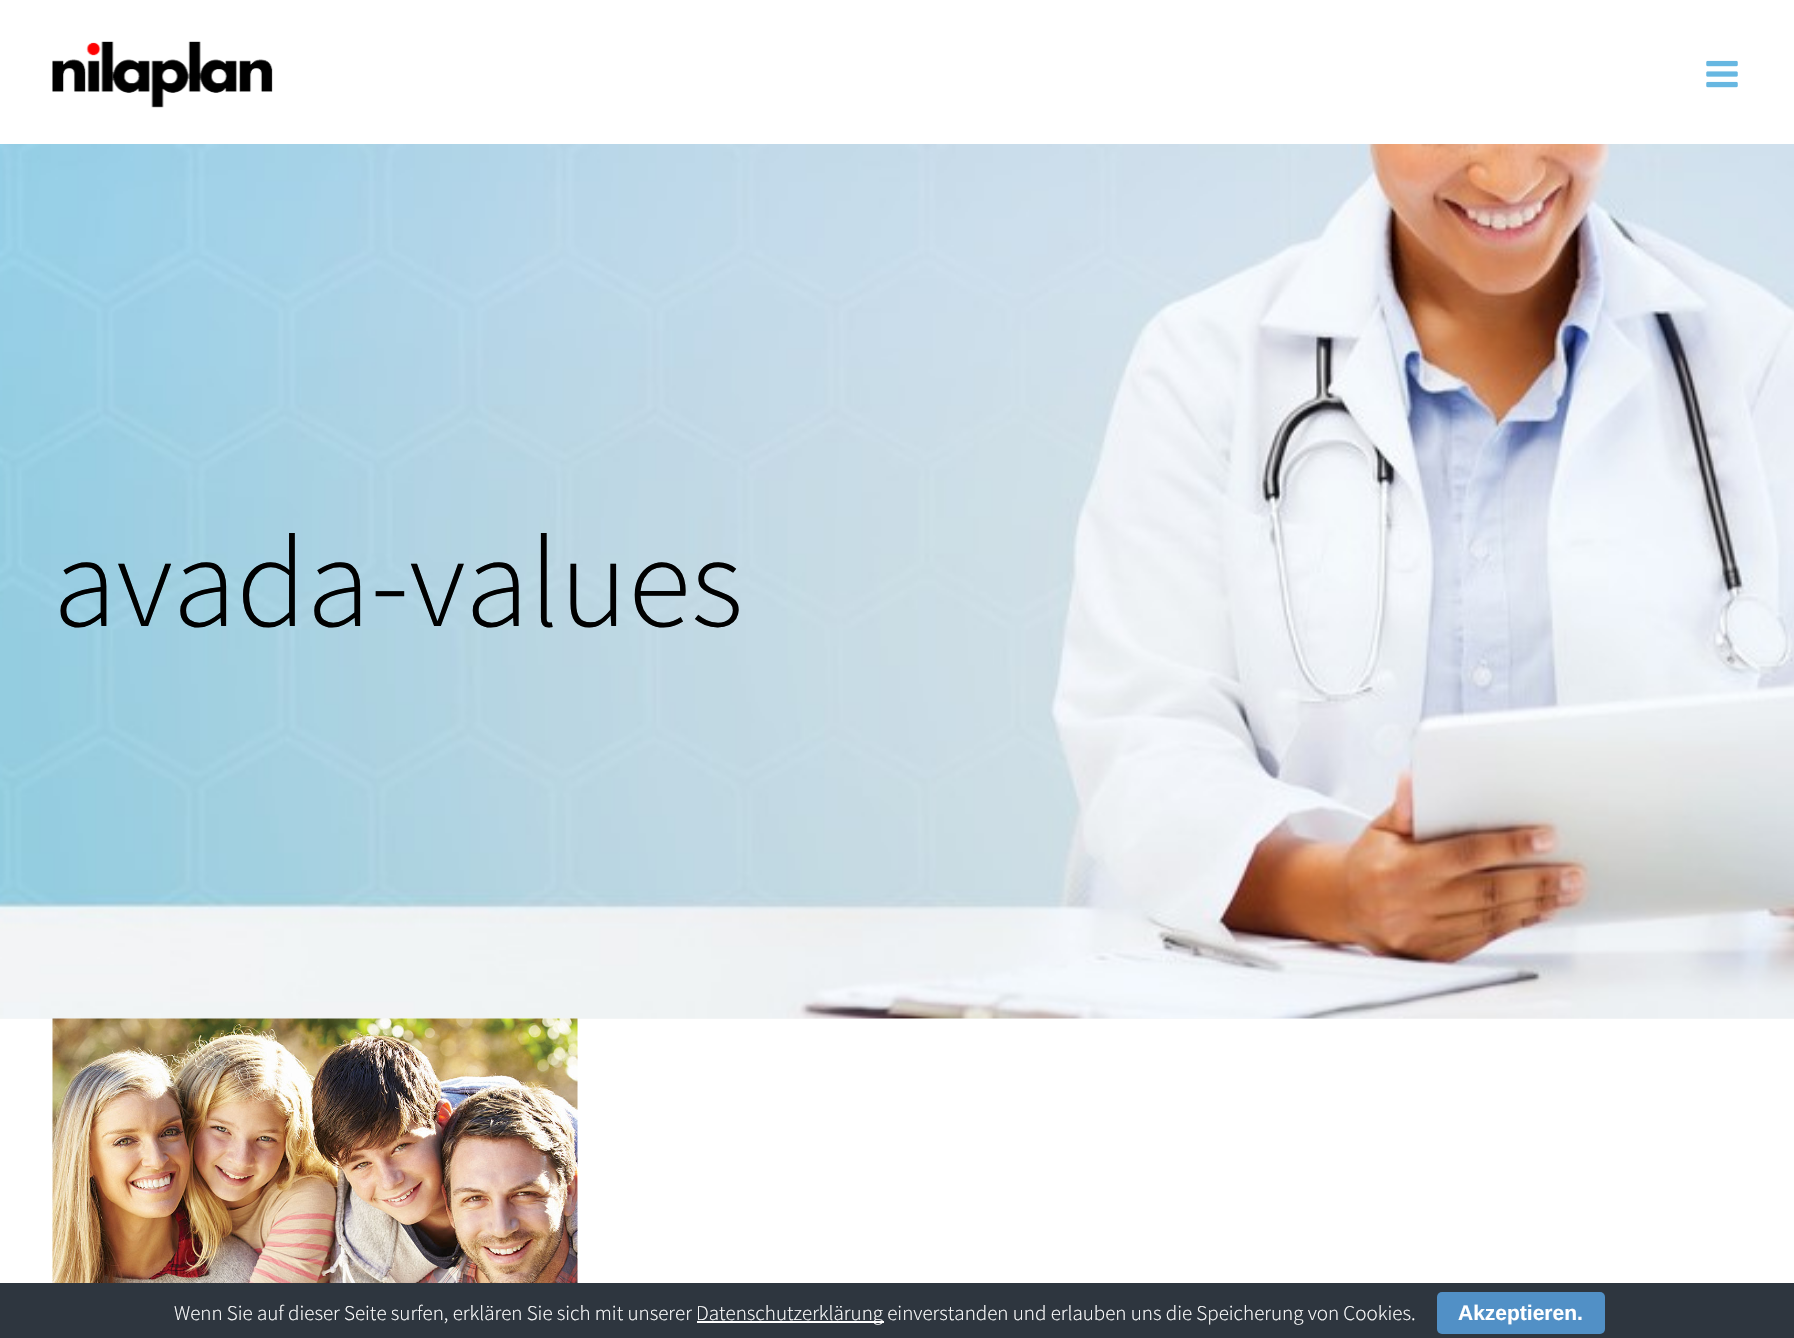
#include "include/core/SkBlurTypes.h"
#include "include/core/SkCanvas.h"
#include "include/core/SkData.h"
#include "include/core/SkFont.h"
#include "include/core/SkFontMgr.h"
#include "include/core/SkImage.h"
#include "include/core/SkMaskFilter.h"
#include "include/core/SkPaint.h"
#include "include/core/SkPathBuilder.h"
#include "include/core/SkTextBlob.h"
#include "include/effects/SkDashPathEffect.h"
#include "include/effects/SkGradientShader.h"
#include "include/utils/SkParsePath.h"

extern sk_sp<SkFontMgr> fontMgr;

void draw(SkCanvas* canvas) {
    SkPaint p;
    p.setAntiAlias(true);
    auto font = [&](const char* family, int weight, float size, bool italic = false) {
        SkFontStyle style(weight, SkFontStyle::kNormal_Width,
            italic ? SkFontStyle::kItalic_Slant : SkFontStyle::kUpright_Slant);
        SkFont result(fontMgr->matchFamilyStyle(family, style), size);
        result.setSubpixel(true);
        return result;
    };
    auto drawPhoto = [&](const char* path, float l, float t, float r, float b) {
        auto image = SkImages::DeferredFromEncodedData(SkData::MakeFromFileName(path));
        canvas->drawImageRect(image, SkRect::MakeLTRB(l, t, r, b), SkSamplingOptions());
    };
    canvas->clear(0xFFFFFFFF);
    drawPhoto("media/1.png", 52, 41, 273, 108);
    drawPhoto("media/2.png", 1706, 60, 1738, 88);
    p.setColor(0xFFF6F6F6);
    canvas->drawRect(SkRect::MakeLTRB(0, 1018, 1794, 1019), p);
    drawPhoto("media/3.png", 0, 144, 1794, 1019);
    auto font1 = font("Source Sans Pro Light", 300, 129.5f);
    p.setColor(0xFF000000);
    canvas->drawString("avada-values", 53, 626, font1, p);
    drawPhoto("media/4.png", 52, 1018, 578, 1283);
    p.setColor(0xFF2E363F);
    canvas->drawRect(SkRect::MakeLTRB(0, 1283, 1794, 1338), p);
    auto font2 = font("Source Sans Pro Light", 300, 21);
    p.setColor(0xFFFFFFFF);
    canvas->drawString("Wenn Sie auf dieser Seite surfen, erklären Sie sich mit unserer", 174, 1320, font2, p);
    canvas->drawRect(SkRect::MakeLTRB(697, 1321, 884, 1323), p);
    canvas->drawString("Datenschutzerklärung einverstanden und erlauben uns die Speicherung von Cookies.", 696, 1320, font2, p);
    p.setColor(0xFF5190C6);
    canvas->drawRoundRect(SkRect::MakeLTRB(1437, 1292, 1605, 1334), 5, 5, p);
    auto font3 = font("Liberation Sans", 700, 21);
    p.setColor(0xFFFFFFFF);
    canvas->drawString("Akzeptieren.", 1458, 1320, font3, p);
}
